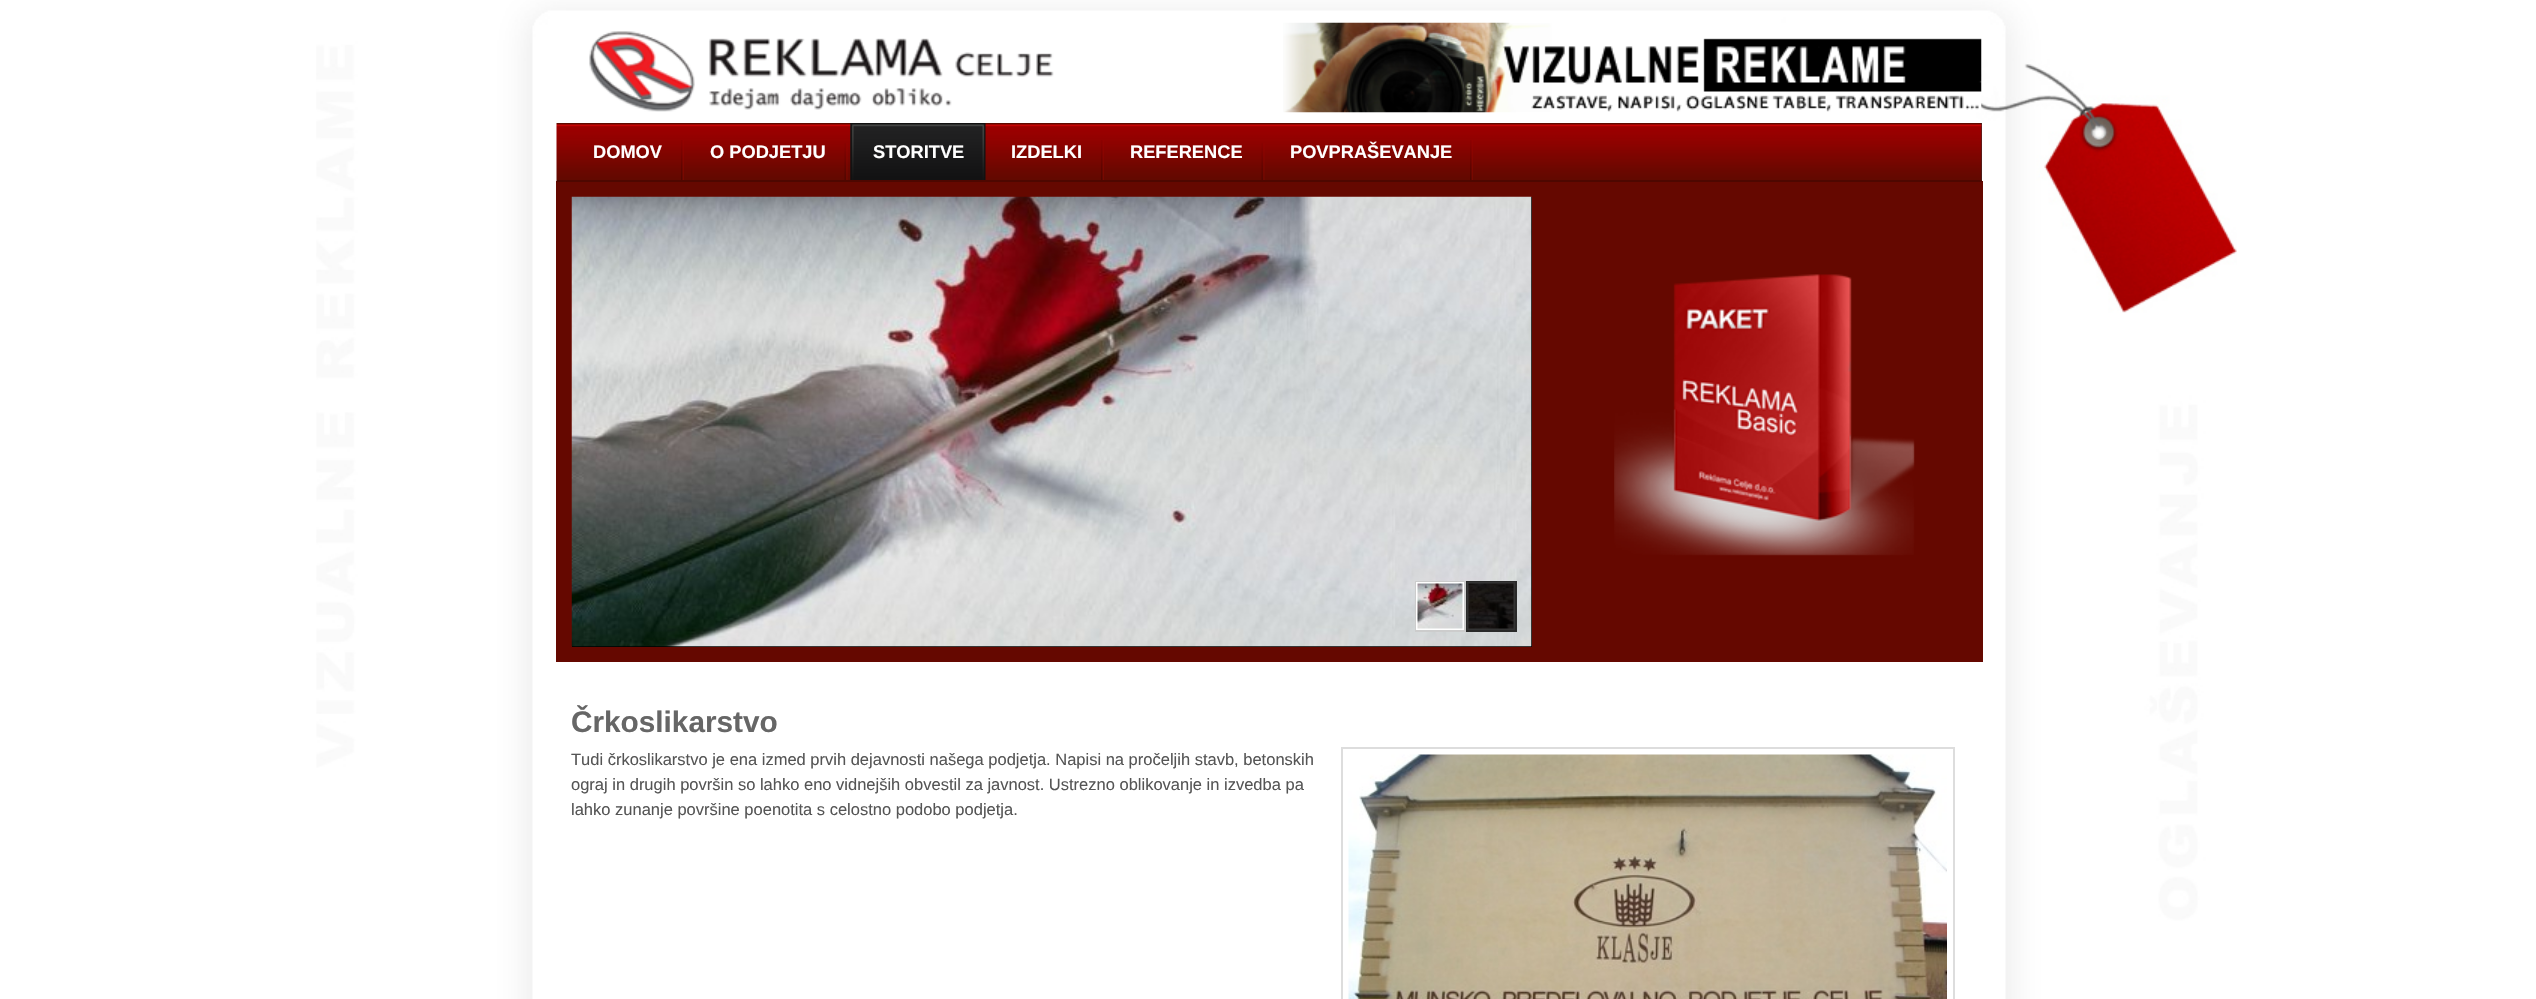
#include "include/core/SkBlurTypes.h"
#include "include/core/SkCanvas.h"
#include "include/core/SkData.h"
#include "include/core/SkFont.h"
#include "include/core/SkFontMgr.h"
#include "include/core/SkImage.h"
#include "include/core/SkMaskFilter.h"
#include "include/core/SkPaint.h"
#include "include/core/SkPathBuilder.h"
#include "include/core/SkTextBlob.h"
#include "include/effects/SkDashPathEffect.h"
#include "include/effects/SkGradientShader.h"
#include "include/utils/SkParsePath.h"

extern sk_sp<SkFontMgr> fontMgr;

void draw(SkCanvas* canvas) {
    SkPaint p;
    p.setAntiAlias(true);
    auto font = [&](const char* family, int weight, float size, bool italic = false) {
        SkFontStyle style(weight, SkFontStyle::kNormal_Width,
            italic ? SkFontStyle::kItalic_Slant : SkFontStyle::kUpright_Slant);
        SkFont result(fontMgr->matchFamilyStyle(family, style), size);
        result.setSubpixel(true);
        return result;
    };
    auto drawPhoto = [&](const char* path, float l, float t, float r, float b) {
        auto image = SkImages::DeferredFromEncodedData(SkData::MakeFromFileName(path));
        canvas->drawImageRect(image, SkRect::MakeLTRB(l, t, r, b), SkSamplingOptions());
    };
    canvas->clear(0xFFFFFFFF);
    drawPhoto("media/1.png", 316, 0, 2237, 999);
    drawPhoto("media/2.png", 589, 31, 1054, 112);
    drawPhoto("media/3.png", 1283, 22, 1982, 113);
    p.setColor(0xFF333333);
    canvas->drawRect(SkRect::MakeLTRB(1981, 123, 1982, 180), p);
    p.setColor(0xFF650800);
    canvas->drawRect(SkRect::MakeLTRB(556, 181, 1983, 662), p);
    drawPhoto("media/4.png", 556, 123, 1982, 182);
    p.setColor(0xFF4E0700);
    canvas->drawRect(SkRect::MakeLTRB(557, 180, 1982, 182), p);
    drawPhoto("media/5.png", 681, 140, 684, 180);
    auto font1 = font("Liberation Sans", 700, 18.25f);
    p.setColor(0xFFFFFFFF);
    canvas->drawString("DOMOV", 593, 158, font1, p);
    drawPhoto("media/6.png", 844, 143, 848, 180);
    canvas->drawString("O PODJETJU", 710, 158, font1, p);
    drawPhoto("media/7.png", 850, 123, 986, 180);
    drawPhoto("media/8.png", 850, 123, 854, 180);
    canvas->drawString("STORITVE", 873, 158, font1, p);
    drawPhoto("media/9.png", 1101, 140, 1104, 180);
    canvas->drawString("IZDELKI", 1011, 158, font1, p);
    drawPhoto("media/6.png", 1261, 143, 1265, 180);
    canvas->drawString("REFERENCE", 1130, 158, font1, p);
    drawPhoto("media/9.png", 1470, 140, 1473, 180);
    canvas->drawString("POVPRAŠEVANJE", 1290, 158, font1, p);
    p.setColor(0xFF000000);
    canvas->drawRect(SkRect::MakeLTRB(572, 197, 1532, 647), p);
    drawPhoto("media/10.png", 571, 196, 1532, 647);
    p.setColor(0xFFCCCCCC);
    canvas->drawRect(SkRect::MakeLTRB(1415, 581, 1517, 632), p);
    p.setStyle(SkPaint::kStroke_Style);
    p.setStrokeWidth(2);
    p.setColor(0xFFFFFFFF);
    canvas->drawRect(SkRect::MakeLTRB(1468, 583, 1514, 629), p);
    drawPhoto("media/12.png", 1468, 583, 1514, 629);
    p.setStyle(SkPaint::kFill_Style);
    p.setColor(0xCC000000);
    canvas->drawRect(SkRect::MakeLTRB(1466, 581, 1517, 632), p);
    p.setStyle(SkPaint::kStroke_Style);
    p.setColor(0xFFFFFFFF);
    canvas->drawRect(SkRect::MakeLTRB(1417, 583, 1463, 629), p);
    drawPhoto("media/11.png", 1417, 583, 1463, 629);
    drawPhoto("media/13.png", 1614, 274, 1915, 556);
    auto font2 = font("Liberation Sans", 700, 29.75f);
    p.setStyle(SkPaint::kFill_Style);
    p.setColor(0xFF666666);
    canvas->drawString("Črkoslikarstvo", 571, 732, font2, p);
    auto font3 = font("Liberation Sans", 400, 16.5f);
    p.setColor(0xFF555555);
    canvas->drawString("Tudi črkoslikarstvo je ena izmed prvih dejavnosti našega podjetja. Napisi na pročeljih stavb, betonskih", 571, 765, font3, p);
    p.setStyle(SkPaint::kStroke_Style);
    p.setColor(0xFFDDDDDD);
    canvas->drawRect(SkRect::MakeLTRB(1342, 748, 1954, 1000), p);
    drawPhoto("media/14.png", 1348, 754, 1947, 999);
    p.setStyle(SkPaint::kFill_Style);
    p.setColor(0xFF555555);
    canvas->drawString("ograj in drugih površin so lahko eno vidnejših obvestil za javnost. Ustrezno oblikovanje in izvedba pa", 571, 790, font3, p);
    canvas->drawString("lahko zunanje površine poenotita s celostno podobo podjetja.", 571, 815, font3, p);
}
